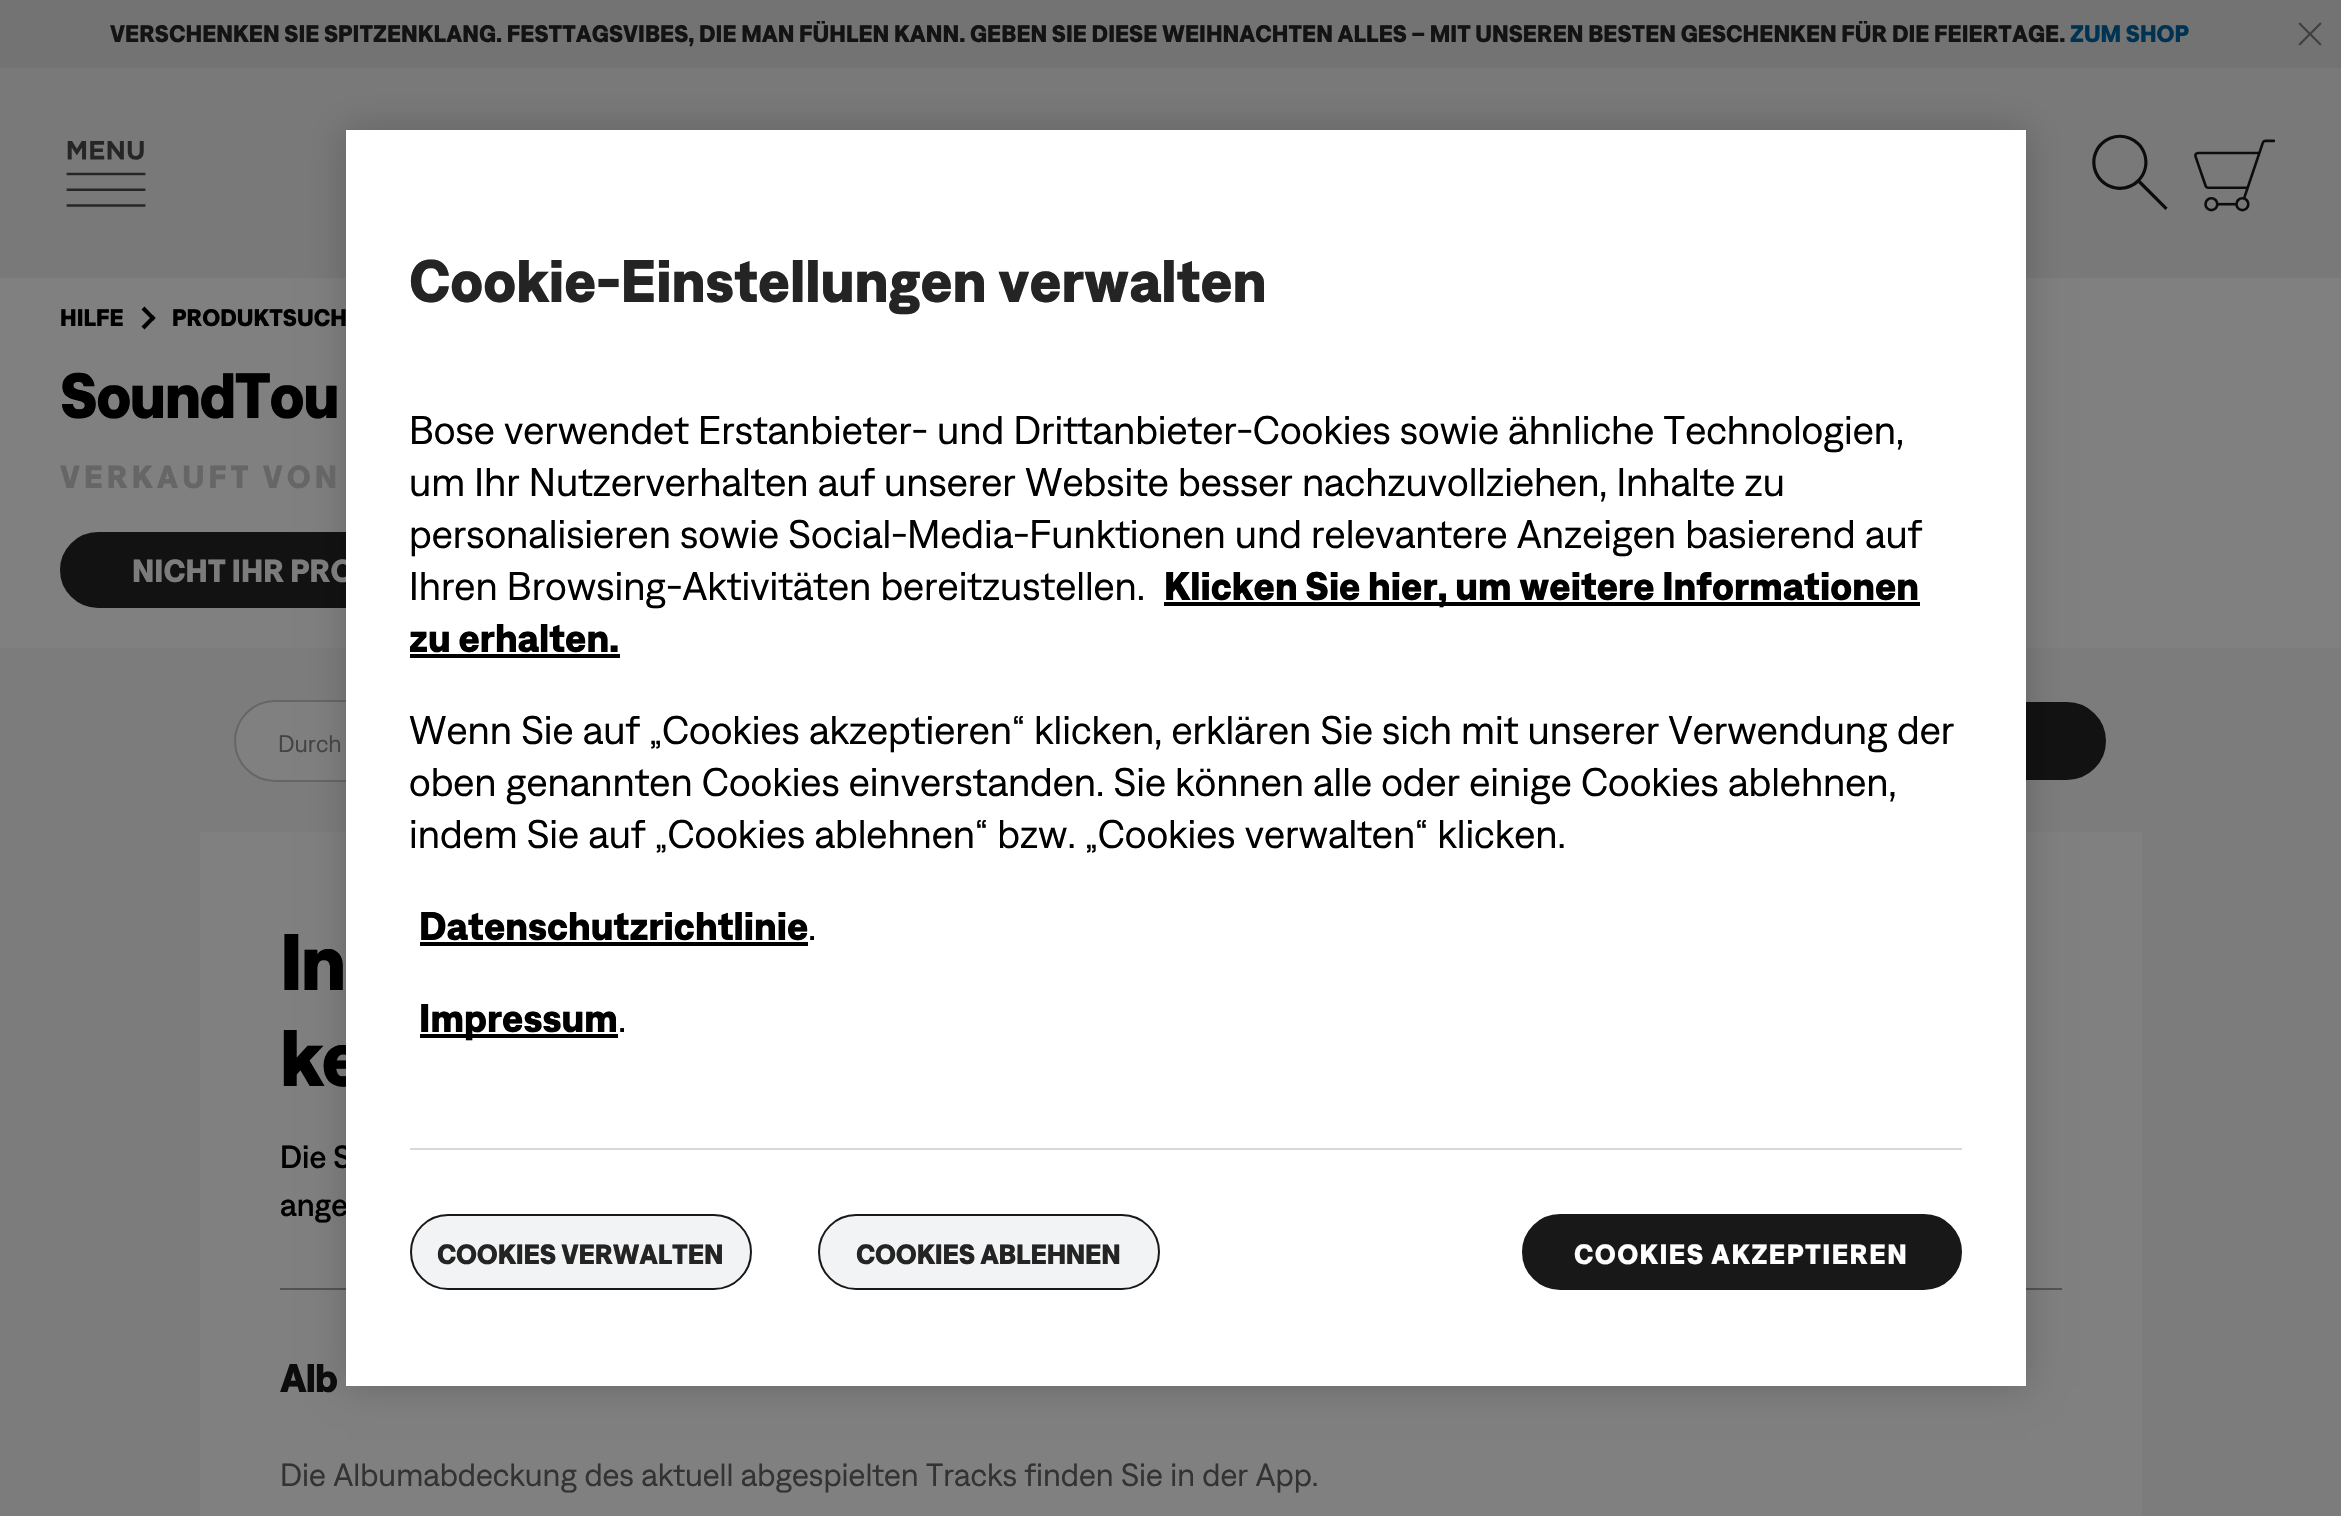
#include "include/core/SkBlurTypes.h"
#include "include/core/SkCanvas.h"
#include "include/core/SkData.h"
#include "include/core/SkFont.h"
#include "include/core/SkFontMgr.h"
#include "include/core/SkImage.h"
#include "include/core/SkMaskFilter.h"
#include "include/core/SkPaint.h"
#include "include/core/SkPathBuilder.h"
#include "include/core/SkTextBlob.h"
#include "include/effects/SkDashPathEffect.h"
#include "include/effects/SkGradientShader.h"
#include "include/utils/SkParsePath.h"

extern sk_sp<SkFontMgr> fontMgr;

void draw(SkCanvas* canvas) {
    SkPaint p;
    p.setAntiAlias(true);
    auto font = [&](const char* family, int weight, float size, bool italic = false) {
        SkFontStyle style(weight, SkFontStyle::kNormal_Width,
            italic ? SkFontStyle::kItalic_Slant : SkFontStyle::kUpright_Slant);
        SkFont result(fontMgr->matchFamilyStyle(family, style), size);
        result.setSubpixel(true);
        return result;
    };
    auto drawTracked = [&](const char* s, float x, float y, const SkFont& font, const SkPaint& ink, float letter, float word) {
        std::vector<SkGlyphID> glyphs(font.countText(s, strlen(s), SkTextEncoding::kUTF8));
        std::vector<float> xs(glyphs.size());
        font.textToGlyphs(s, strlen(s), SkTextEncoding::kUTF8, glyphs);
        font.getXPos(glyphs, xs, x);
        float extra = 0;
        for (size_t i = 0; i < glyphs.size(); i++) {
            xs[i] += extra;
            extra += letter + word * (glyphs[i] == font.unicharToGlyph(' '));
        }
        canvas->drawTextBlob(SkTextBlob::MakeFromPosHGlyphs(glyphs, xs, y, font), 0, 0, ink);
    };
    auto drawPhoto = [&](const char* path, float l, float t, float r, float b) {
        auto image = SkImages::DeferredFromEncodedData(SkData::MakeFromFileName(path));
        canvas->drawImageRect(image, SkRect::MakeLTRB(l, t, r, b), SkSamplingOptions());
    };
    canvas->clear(0xFF797979);
    p.setColor(0xFF737373);
    canvas->drawRect(SkRect::MakeLTRB(0, 0, 2341, 68), p);
    auto font1 = font("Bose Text", 700, 24);
    p.setColor(0xFF131313);
    canvas->drawString("VERSCHENKEN SIE SPITZENKLANG. FESTTAGSVIBES, DIE MAN FÜHLEN KANN. GEBEN SIE DIESE WEIHNACHTEN ALLES – MIT UNSEREN BESTEN GESCHENKEN FÜR DIE FEIERTAGE.", 110, 42, font1, p);
    p.setColor(0xFF003351);
    canvas->drawString("ZUM SHOP", 2070, 42, font1, p);
    drawPhoto("media/1.png", 2298, 22, 2322, 46);
    drawPhoto("media/2.png", 66, 141, 146, 207);
    drawPhoto("media/3.png", 2092, 134, 2168, 210);
    drawPhoto("media/4.png", 2194, 139, 2276, 212);
    p.setColor(0xFF808080);
    canvas->drawRect(SkRect::MakeLTRB(0, 278, 2341, 648), p);
    p.setColor(0xFF121212);
    canvas->drawRoundRect(SkRect::MakeLTRB(61, 533, 525, 607), 37, 37, p);
    p.setStyle(SkPaint::kStroke_Style);
    p.setStrokeWidth(2);
    canvas->drawRoundRect(SkRect::MakeLTRB(61, 533, 525, 607), 37, 37, p);
    p.setStyle(SkPaint::kFill_Style);
    p.setColor(0xFF7C7C7C);
    canvas->drawRect(SkRect::MakeLTRB(0, 648, 2341, 1516), p);
    p.setColor(0xFF808080);
    canvas->drawRoundRect(SkRect::MakeLTRB(235, 701, 1709, 781), 40, 40, p);
    p.setStyle(SkPaint::kStroke_Style);
    p.setColor(0xFF666666);
    canvas->drawRoundRect(SkRect::MakeLTRB(235, 701, 1709, 781), 40, 40, p);
    p.setStyle(SkPaint::kFill_Style);
    p.setColor(0xFF121212);
    canvas->drawRoundRect(SkRect::MakeLTRB(1751, 701, 2107, 781), 40, 40, p);
    p.setStyle(SkPaint::kStroke_Style);
    p.setColor(0xFF7C7C7C);
    canvas->drawRoundRect(SkRect::MakeLTRB(1751, 701, 2107, 781), 40, 40, p);
    p.setStyle(SkPaint::kFill_Style);
    p.setColor(0xFF808080);
    canvas->drawRect(SkRect::MakeLTRB(200, 832, 2142, 1516), p);
    p.setColor(0xFF535353);
    canvas->drawRect(SkRect::MakeLTRB(280, 1288, 2062, 1290), p);
    p.setColor(0x33000000);
    p.setMaskFilter(SkMaskFilter::MakeBlur(kNormal_SkBlurStyle, 18));
    canvas->drawRect(SkRect::MakeLTRB(346, 130, 2026, 1386), p);
    p.setMaskFilter(nullptr);
    auto font2 = font("Bose Text", 700, 32);
    p.setColor(0xFF7C7C7C);
    canvas->drawString("NICHT IHR PRO", 132, 582, font2, p);
    auto font3 = font("Bose Text", 700, 80);
    p.setColor(0xFF000000);
    drawTracked("ke", 280, 1086, font3, p, -2, 0);
    auto font4 = font("Bose Text", 500, 32);
    canvas->drawString("Die S", 280, 1168, font4, p);
    canvas->drawString("ange", 280, 1216, font4, p);
    p.setColor(0xFFFFFFFF);
    canvas->drawRect(SkRect::MakeLTRB(346, 130, 2026, 1386), p);
    auto font5 = font("Bose Text", 700, 60);
    p.setColor(0xFF242424);
    canvas->drawString("Cookie-Einstellungen verwalten", 409, 302, font5, p);
    auto font6 = font("Bose Text", 400, 40);
    p.setColor(0xFF000000);
    {
        const struct { const char* s; float x, y; } items[] = {
            {"Bose verwendet Erstanbieter- und Drittanbieter-Cookies sowie ähnliche Technologien,", 409, 444},
            {"um Ihr Nutzerverhalten auf unserer Website besser nachzuvollziehen, Inhalte zu", 409, 496},
            {"personalisieren sowie Social-Media-Funktionen und relevantere Anzeigen basierend auf", 409, 548},
            {"Ihren Browsing-Aktivitäten bereitzustellen.", 409, 600},
        };
        for (auto [s, x, y] : items) {
            canvas->drawString(s, x, y, font6, p);
        }
    }
    canvas->drawRect(SkRect::MakeLTRB(1164, 602, 1920, 606), p);
    auto font7 = font("Bose Text", 700, 40);
    canvas->drawString("Klicken Sie hier, um weitere Informationen", 1164, 600, font7, p);
    canvas->drawString("zu erhalten.", 409, 652, font7, p);
    canvas->drawRect(SkRect::MakeLTRB(410, 654, 620, 658), p);
    {
        const struct { const char* s; float x, y; } items[] = {
            {"Wenn Sie auf „Cookies akzeptieren“ klicken, erklären Sie sich mit unserer Verwendung der", 409, 744},
            {"oben genannten Cookies einverstanden. Sie können alle oder einige Cookies ablehnen,", 409, 796},
            {"indem Sie auf „Cookies ablehnen“ bzw. „Cookies verwalten“ klicken.", 409, 848},
        };
        for (auto [s, x, y] : items) {
            canvas->drawString(s, x, y, font6, p);
        }
    }
    canvas->drawString("Datenschutzrichtlinie", 419, 940, font7, p);
    canvas->drawRect(SkRect::MakeLTRB(420, 942, 808, 946), p);
    canvas->drawString(".", 808, 940, font6, p);
    canvas->drawRect(SkRect::MakeLTRB(420, 1034, 618, 1038), p);
    canvas->drawString("Impressum", 419, 1032, font7, p);
    canvas->drawString(".", 618, 1032, font6, p);
    p.setColor(0xFFD9D9D9);
    canvas->drawRect(SkRect::MakeLTRB(410, 1148, 1962, 1150), p);
    p.setColor(0xFFF2F3F4);
    canvas->drawRoundRect(SkRect::MakeLTRB(411, 1215, 751, 1289), 37, 37, p);
    p.setStyle(SkPaint::kStroke_Style);
    p.setColor(0xFF181818);
    canvas->drawRoundRect(SkRect::MakeLTRB(411, 1215, 751, 1289), 37, 37, p);
    auto font8 = font("Bose Text", 700, 28);
    p.setStyle(SkPaint::kFill_Style);
    p.setColor(0xFF242424);
    drawTracked("COOKIES VERWALTEN", 437, 1264, font8, p, -0.25f, 0);
    p.setColor(0xFFF2F3F4);
    canvas->drawRoundRect(SkRect::MakeLTRB(819, 1215, 1159, 1289), 37, 37, p);
    p.setStyle(SkPaint::kStroke_Style);
    p.setColor(0xFF181818);
    canvas->drawRoundRect(SkRect::MakeLTRB(819, 1215, 1159, 1289), 37, 37, p);
    p.setStyle(SkPaint::kFill_Style);
    p.setColor(0xFF242424);
    drawTracked("COOKIES ABLEHNEN", 856, 1264, font8, p, -0.25f, 0);
    p.setColor(0xFF181818);
    canvas->drawRoundRect(SkRect::MakeLTRB(1523, 1215, 1961, 1289), 37, 37, p);
    p.setStyle(SkPaint::kStroke_Style);
    canvas->drawRoundRect(SkRect::MakeLTRB(1523, 1215, 1961, 1289), 37, 37, p);
    p.setStyle(SkPaint::kFill_Style);
    p.setColor(0xFFFFFFFF);
    drawTracked("COOKIES AKZEPTIEREN", 1574, 1264, font8, p, 1.4f, 0);
    p.setColor(0xFF000000);
    canvas->drawString("HILFE", 60, 326, font1, p);
    canvas->drawPath(SkPathBuilder().moveTo(141.5f, 309.5f).lineTo(144.5f, 306.5f).lineTo(155.5f, 318).lineTo(153, 321).close().detach(), p);
    canvas->drawPath(SkPathBuilder().moveTo(141.5f, 326.5f).lineTo(153, 315).lineTo(155.5f, 318).lineTo(144.5f, 329.5f).close().detach(), p);
    canvas->drawString("PRODUKTSUCH", 172, 326, font1, p);
    auto font9 = font("Bose Text", 700, 64);
    drawTracked("SoundTou", 60, 418, font9, p, -1.5f, 0);
    p.setColor(0xFF666666);
    drawTracked("VERKAUFT VON", 60, 488, font2, p, 4, 0);
    auto font10 = font("Bose Text", 400, 24);
    p.setColor(0xFF444444);
    canvas->drawString("Durch", 278, 752, font10, p);
    p.setColor(0xFF000000);
    drawTracked("In", 280, 990, font3, p, -2, 0);
    p.setColor(0xFF0C0C0C);
    drawTracked("Alb", 280, 1392, font7, p, -1, 0);
    auto font11 = font("Bose Text", 400, 32);
    p.setColor(0xFF333333);
    canvas->drawString("Die Albumabdeckung des aktuell abgespielten Tracks finden Sie in der App.", 280, 1486, font11, p);
}
